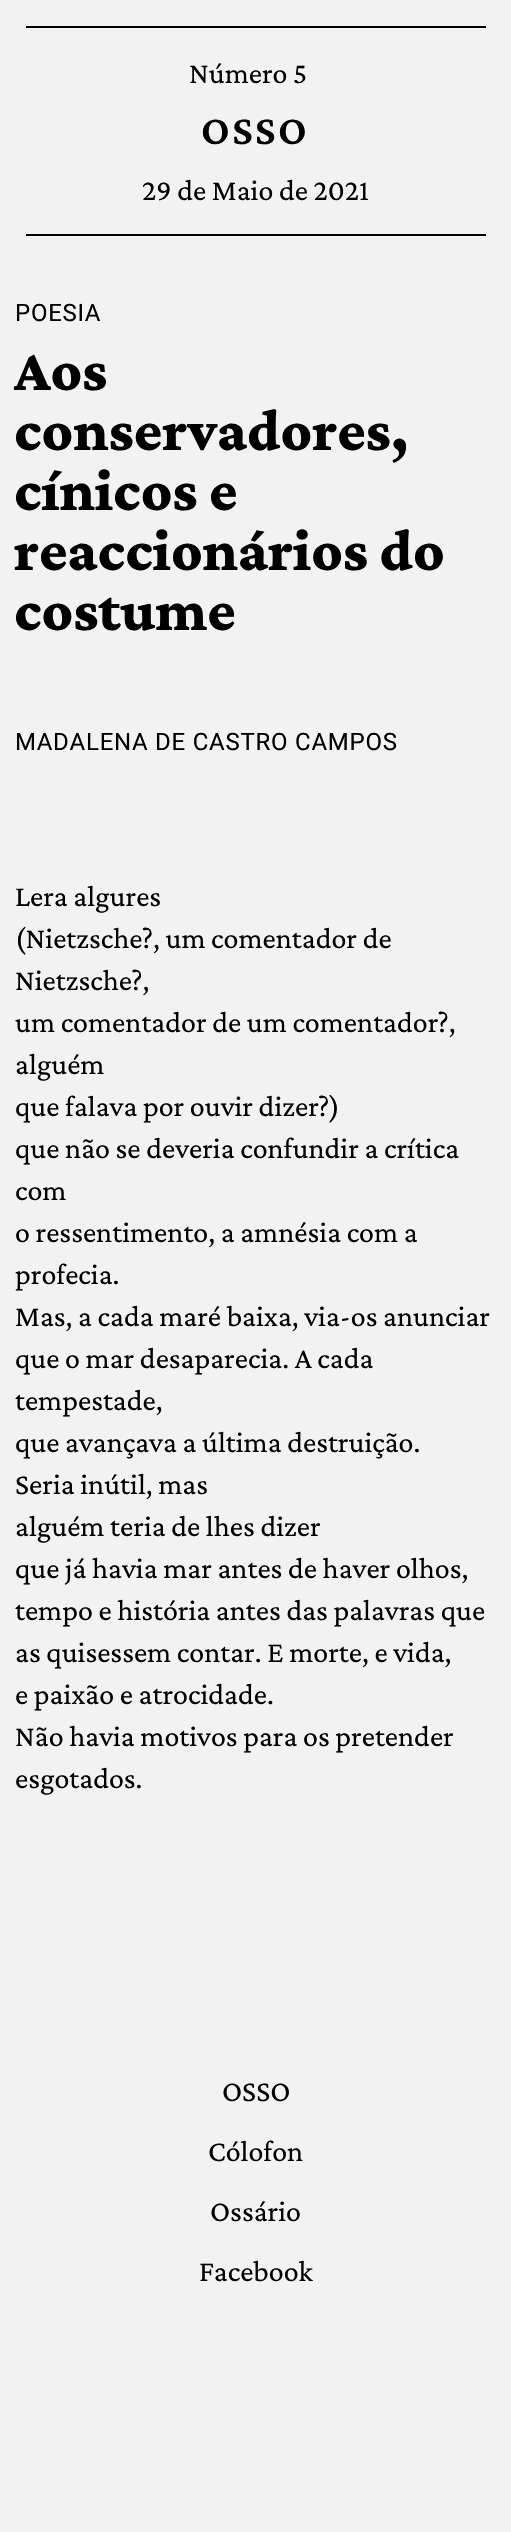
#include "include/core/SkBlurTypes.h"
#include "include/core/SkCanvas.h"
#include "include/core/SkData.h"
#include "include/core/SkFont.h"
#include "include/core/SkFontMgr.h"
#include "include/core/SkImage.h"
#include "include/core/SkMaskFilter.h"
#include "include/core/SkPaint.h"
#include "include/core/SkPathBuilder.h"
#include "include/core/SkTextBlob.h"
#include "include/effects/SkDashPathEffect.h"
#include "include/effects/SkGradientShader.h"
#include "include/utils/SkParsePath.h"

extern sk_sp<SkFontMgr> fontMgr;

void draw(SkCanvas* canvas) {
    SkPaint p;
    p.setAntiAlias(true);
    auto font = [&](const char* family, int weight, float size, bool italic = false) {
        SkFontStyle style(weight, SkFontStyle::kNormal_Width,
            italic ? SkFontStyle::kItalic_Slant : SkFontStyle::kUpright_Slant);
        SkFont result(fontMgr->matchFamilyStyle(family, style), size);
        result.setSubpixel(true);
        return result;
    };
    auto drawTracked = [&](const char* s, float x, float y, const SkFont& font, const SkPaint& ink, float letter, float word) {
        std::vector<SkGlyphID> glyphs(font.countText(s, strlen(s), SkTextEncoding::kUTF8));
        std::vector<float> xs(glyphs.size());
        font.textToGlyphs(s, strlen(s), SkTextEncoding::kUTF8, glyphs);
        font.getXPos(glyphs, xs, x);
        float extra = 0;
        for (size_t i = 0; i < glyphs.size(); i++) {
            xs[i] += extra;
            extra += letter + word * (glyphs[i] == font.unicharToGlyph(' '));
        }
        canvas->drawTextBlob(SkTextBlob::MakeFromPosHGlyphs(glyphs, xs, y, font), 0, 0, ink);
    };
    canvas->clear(0xFFF2F2F2);
    p.setColor(0xFF000000);
    canvas->drawRect(SkRect::MakeLTRB(26, 26, 486, 28), p);
    canvas->drawRect(SkRect::MakeLTRB(26, 234, 486, 236), p);
    auto font1 = font("Crimson Pro", 400, 30);
    canvas->drawString("Número 5", 189, 83, font1, p);
    auto font2 = font("Crimson Pro", 600, 42);
    drawTracked("OSSO", 201, 144, font2, p, 2.5f, 0);
    canvas->drawString("29 de Maio de 2021", 142, 200, font1, p);
    auto font3 = font("Roboto", 400, 24);
    drawTracked("POESIA", 15, 321, font3, p, 0.75f, 0);
    auto font4 = font("Crimson Pro", 800, 60);
    {
        const struct { const char* s; float x, y; } items[] = {
            {"Aos", 14, 390},
            {"conservadores,", 14, 450},
            {"cínicos e", 14, 510},
            {"reaccionários do", 14, 570},
            {"costume", 14, 630},
        };
        for (auto [s, x, y] : items) {
            canvas->drawString(s, x, y, font4, p);
        }
    }
    drawTracked("MADALENA DE CASTRO CAMPOS", 15, 750, font3, p, 0.75f, 0);
    {
        const struct { const char* s; float x, y; } items[] = {
            {"Lera algures", 15, 906},
            {"(Nietzsche?, um comentador de", 15, 948},
            {"Nietzsche?,", 15, 990},
            {"um comentador de um comentador?,", 15, 1032},
            {"alguém", 15, 1074},
            {"que falava por ouvir dizer?)", 15, 1116},
            {"que não se deveria confundir a crítica", 15, 1158},
            {"com", 15, 1200},
            {"o ressentimento, a amnésia com a", 15, 1242},
            {"profecia.", 15, 1284},
            {"Mas, a cada maré baixa, via-os anunciar", 15, 1326},
            {"que o mar desaparecia. A cada", 15, 1368},
            {"tempestade,", 15, 1410},
            {"que avançava a última destruição.", 15, 1452},
            {"Seria inútil, mas", 15, 1494},
            {"alguém teria de lhes dizer", 15, 1536},
            {"que já havia mar antes de haver olhos,", 15, 1578},
            {"tempo e história antes das palavras que", 15, 1620},
            {"as quisessem contar. E morte, e vida,", 15, 1662},
            {"e paixão e atrocidade.", 15, 1704},
            {"Não havia motivos para os pretender", 15, 1746},
            {"esgotados.", 15, 1788},
            {"OSSO", 222, 2101},
            {"Cólofon", 208, 2161},
            {"Ossário", 210, 2221},
            {"Facebook", 199, 2281},
        };
        for (auto [s, x, y] : items) {
            canvas->drawString(s, x, y, font1, p);
        }
    }
}
